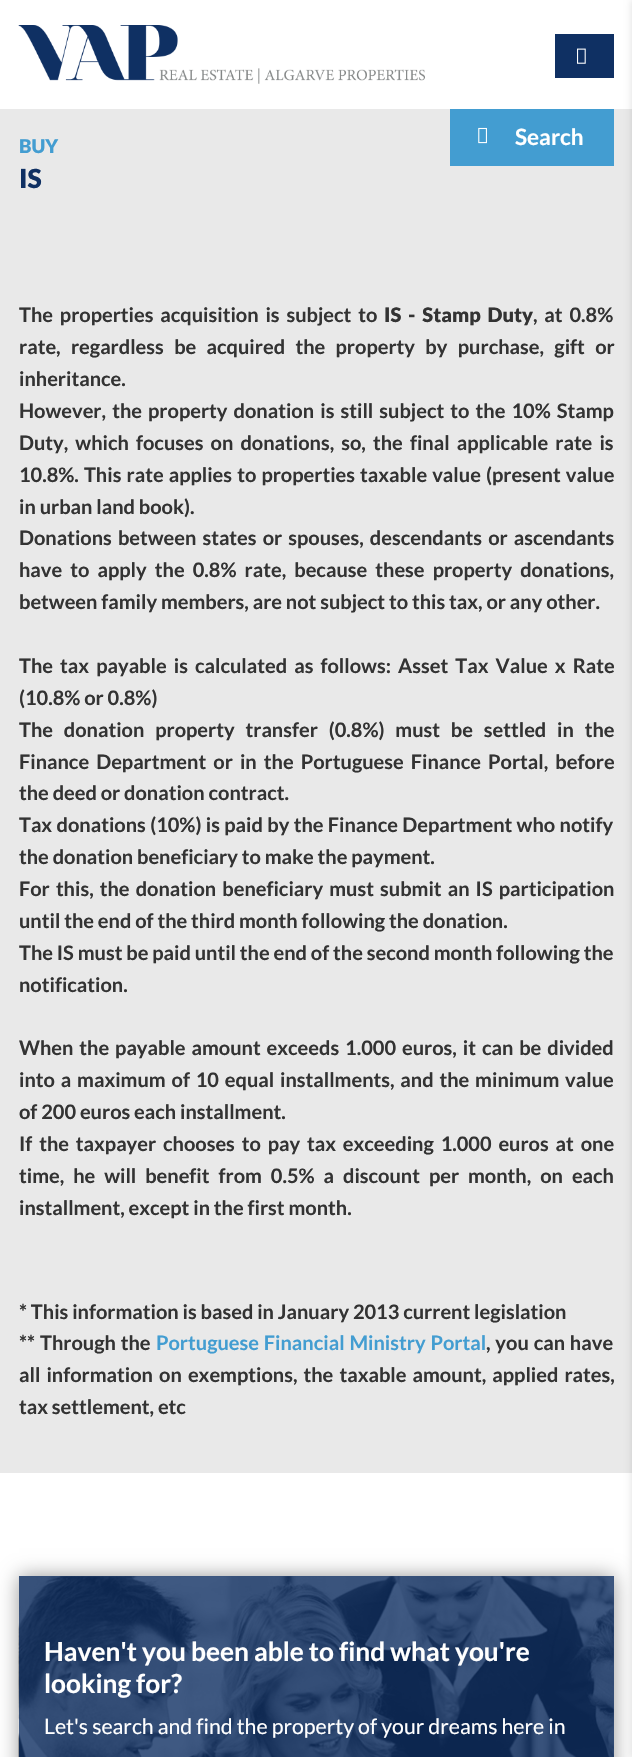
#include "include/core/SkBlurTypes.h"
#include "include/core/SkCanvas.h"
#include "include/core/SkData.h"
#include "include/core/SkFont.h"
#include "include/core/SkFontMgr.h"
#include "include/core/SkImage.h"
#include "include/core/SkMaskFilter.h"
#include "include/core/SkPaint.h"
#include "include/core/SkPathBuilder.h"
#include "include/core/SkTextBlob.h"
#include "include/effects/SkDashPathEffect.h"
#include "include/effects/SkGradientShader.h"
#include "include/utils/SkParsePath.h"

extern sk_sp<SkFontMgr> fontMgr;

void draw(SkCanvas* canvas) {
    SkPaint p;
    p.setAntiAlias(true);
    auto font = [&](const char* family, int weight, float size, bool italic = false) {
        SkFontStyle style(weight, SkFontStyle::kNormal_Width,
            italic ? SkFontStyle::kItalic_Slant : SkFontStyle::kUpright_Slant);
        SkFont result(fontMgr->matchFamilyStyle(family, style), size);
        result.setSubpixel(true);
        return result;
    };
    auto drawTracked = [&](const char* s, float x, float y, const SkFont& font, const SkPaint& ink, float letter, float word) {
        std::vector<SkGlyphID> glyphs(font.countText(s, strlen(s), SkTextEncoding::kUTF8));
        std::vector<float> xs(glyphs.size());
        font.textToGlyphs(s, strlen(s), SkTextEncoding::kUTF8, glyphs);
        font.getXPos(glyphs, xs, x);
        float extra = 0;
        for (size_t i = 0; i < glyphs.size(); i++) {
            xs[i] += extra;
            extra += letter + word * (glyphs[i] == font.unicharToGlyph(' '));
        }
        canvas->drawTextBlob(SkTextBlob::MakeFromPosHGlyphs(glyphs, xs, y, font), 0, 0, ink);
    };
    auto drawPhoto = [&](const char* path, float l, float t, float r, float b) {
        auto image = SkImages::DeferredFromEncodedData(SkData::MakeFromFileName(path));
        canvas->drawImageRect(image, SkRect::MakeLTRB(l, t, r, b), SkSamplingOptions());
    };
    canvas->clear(0xFFE9E9E9);
    p.setColor(0xFFFFFFFF);
    canvas->drawRect(SkRect::MakeLTRB(0, 0, 632, 109), p);
    drawPhoto("media/1.png", 18, 25, 425, 84);
    p.setColor(0xFF0F3063);
    canvas->drawRect(SkRect::MakeLTRB(555, 34, 614, 78), p);
    drawPhoto("media/2.png", 577, 48, 586, 64);
    p.setColor(0xFF439DD1);
    canvas->drawRect(SkRect::MakeLTRB(450, 109, 614, 166), p);
    drawPhoto("media/3.png", 478, 127, 487, 144);
    auto font1 = font("Lato", 700, 22.5f);
    p.setColor(0xFFFFFFFF);
    canvas->drawString("Search", 515, 145, font1, p);
    auto font2 = font("Lato", 900, 19);
    p.setColor(0xFF439DD1);
    canvas->drawString("BUY", 19, 153, font2, p);
    auto font3 = font("Lato", 900, 26.25f);
    p.setColor(0xFF0F3063);
    canvas->drawString("IS", 19, 188, font3, p);
    auto font4 = font("Lato", 700, 20);
    p.setColor(0xFF333333);
    drawTracked("The properties acquisition is subject to", 19, 322, font4, p, 0, 3);
    auto font5 = font("Lato", 900, 20);
    drawTracked("IS - Stamp Duty", 384, 322, font5, p, 0, 3);
    drawTracked(", at 0.8%", 533, 322, font4, p, 0, 3);
    drawTracked("rate, regardless be acquired the property by purchase, gift or", 19, 354, font4, p, 0, 6.5f);
    canvas->drawString("inheritance.", 19, 386, font4, p);
    drawTracked("However, the property donation is still subject to the 10% Stamp", 19, 418, font4, p, 0, 2.25f);
    drawTracked("Duty, which focuses on donations, so, the final applicable rate is", 19, 450, font4, p, 0, 3.25f);
    drawTracked("10.8%. This rate applies to properties taxable value (present value", 19, 482, font4, p, 0, 1.25f);
    canvas->drawString("in urban land book).", 19, 514, font4, p);
    drawTracked("Donations between states or spouses, descendants or ascendants", 19, 545, font4, p, 0, 2.25f);
    drawTracked("have to apply the 0.8% rate, because these property donations,", 19, 577, font4, p, 0, 4.25f);
    canvas->drawString("between family members, are not subject to this tax, or any other.", 19, 609, font4, p);
    drawTracked("The tax payable is calculated as follows: Asset Tax Value x Rate", 19, 673, font4, p, 0, 3.25f);
    canvas->drawString("(10.8% or 0.8%)", 19, 705, font4, p);
    drawTracked("The donation property transfer (0.8%) must be settled in the", 19, 737, font4, p, 0, 7);
    drawTracked("Finance Department or in the Portuguese Finance Portal, before", 19, 769, font4, p, 0, 3.25f);
    canvas->drawString("the deed or donation contract.", 19, 800, font4, p);
    drawTracked("Tax donations (10%) is paid by the Finance Department who notify", 19, 832, font4, p, 0, 0.5f);
    canvas->drawString("the donation beneficiary to make the payment.", 19, 864, font4, p);
    drawTracked("For this, the donation beneficiary must submit an IS participation", 19, 896, font4, p, 0, 2.25f);
    {
        const struct { const char* s; float x, y; } items[] = {
            {"until the end of the third month following the donation.", 19, 928},
            {"The IS must be paid until the end of the second month following the", 19, 960},
            {"notification.", 19, 992},
        };
        for (auto [s, x, y] : items) {
            canvas->drawString(s, x, y, font4, p);
        }
    }
    drawTracked("When the payable amount exceeds 1.000 euros, it can be divided", 19, 1055, font4, p, 0, 2.1f);
    drawTracked("into a maximum of 10 equal installments, and the minimum value", 19, 1087, font4, p, 0, 2);
    canvas->drawString("of 200 euros each installment.", 19, 1119, font4, p);
    drawTracked("If the taxpayer chooses to pay tax exceeding 1.000 euros at one", 19, 1151, font4, p, 0, 3);
    drawTracked("time, he will benefit from 0.5% a discount per month, on each", 19, 1183, font4, p, 0, 5.1f);
    {
        const struct { const char* s; float x, y; } items[] = {
            {"installment, except in the first month.", 19, 1215},
            {"* This information is based in January 2013 current legislation", 19, 1319},
            {"**", 19, 1350},
        };
        for (auto [s, x, y] : items) {
            canvas->drawString(s, x, y, font4, p);
        }
    }
    drawTracked("Through the", 40, 1350, font4, p, 0, 1);
    p.setColor(0xFF439DD1);
    drawTracked("Portuguese Financial Ministry Portal", 156, 1350, font4, p, 0, 1);
    p.setColor(0xFF333333);
    drawTracked(", you can have", 486, 1350, font4, p, 0, 1);
    drawTracked("all information on exemptions, the taxable amount, applied rates,", 19, 1382, font4, p, 0, 2.25f);
    canvas->drawString("tax settlement, etc", 19, 1414, font4, p);
    p.setColor(0xFFFFFFFF);
    canvas->drawRect(SkRect::MakeLTRB(0, 1473, 632, 1757), p);
    p.setColor(0x66000000);
    p.setMaskFilter(SkMaskFilter::MakeBlur(kNormal_SkBlurStyle, 9.5f));
    canvas->drawRect(SkRect::MakeLTRB(19, 1576, 614, 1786), p);
    p.setMaskFilter(nullptr);
    drawPhoto("media/4.png", 18, 1576, 614, 1757);
    p.setColor(0xCC0F3063);
    canvas->drawRect(SkRect::MakeLTRB(19, 1576, 614, 1757), p);
    auto font6 = font("Lato", 700, 26.25f);
    p.setColor(0xFFFFFFFF);
    canvas->drawString("Haven't you been able to find what you're", 44, 1661, font6, p);
    canvas->drawString("looking for?", 44, 1693, font6, p);
    auto font7 = font("Lato", 400, 21.25f);
    canvas->drawString("Let's search and find the property of your dreams here in", 44, 1734, font7, p);
    p.setColor(0x1A000000);
    p.setMaskFilter(SkMaskFilter::MakeBlur(kNormal_SkBlurStyle, 3));
    canvas->drawRect(SkRect::MakeLTRB(631, 0, 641, 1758), p);
    p.setMaskFilter(nullptr);
}
